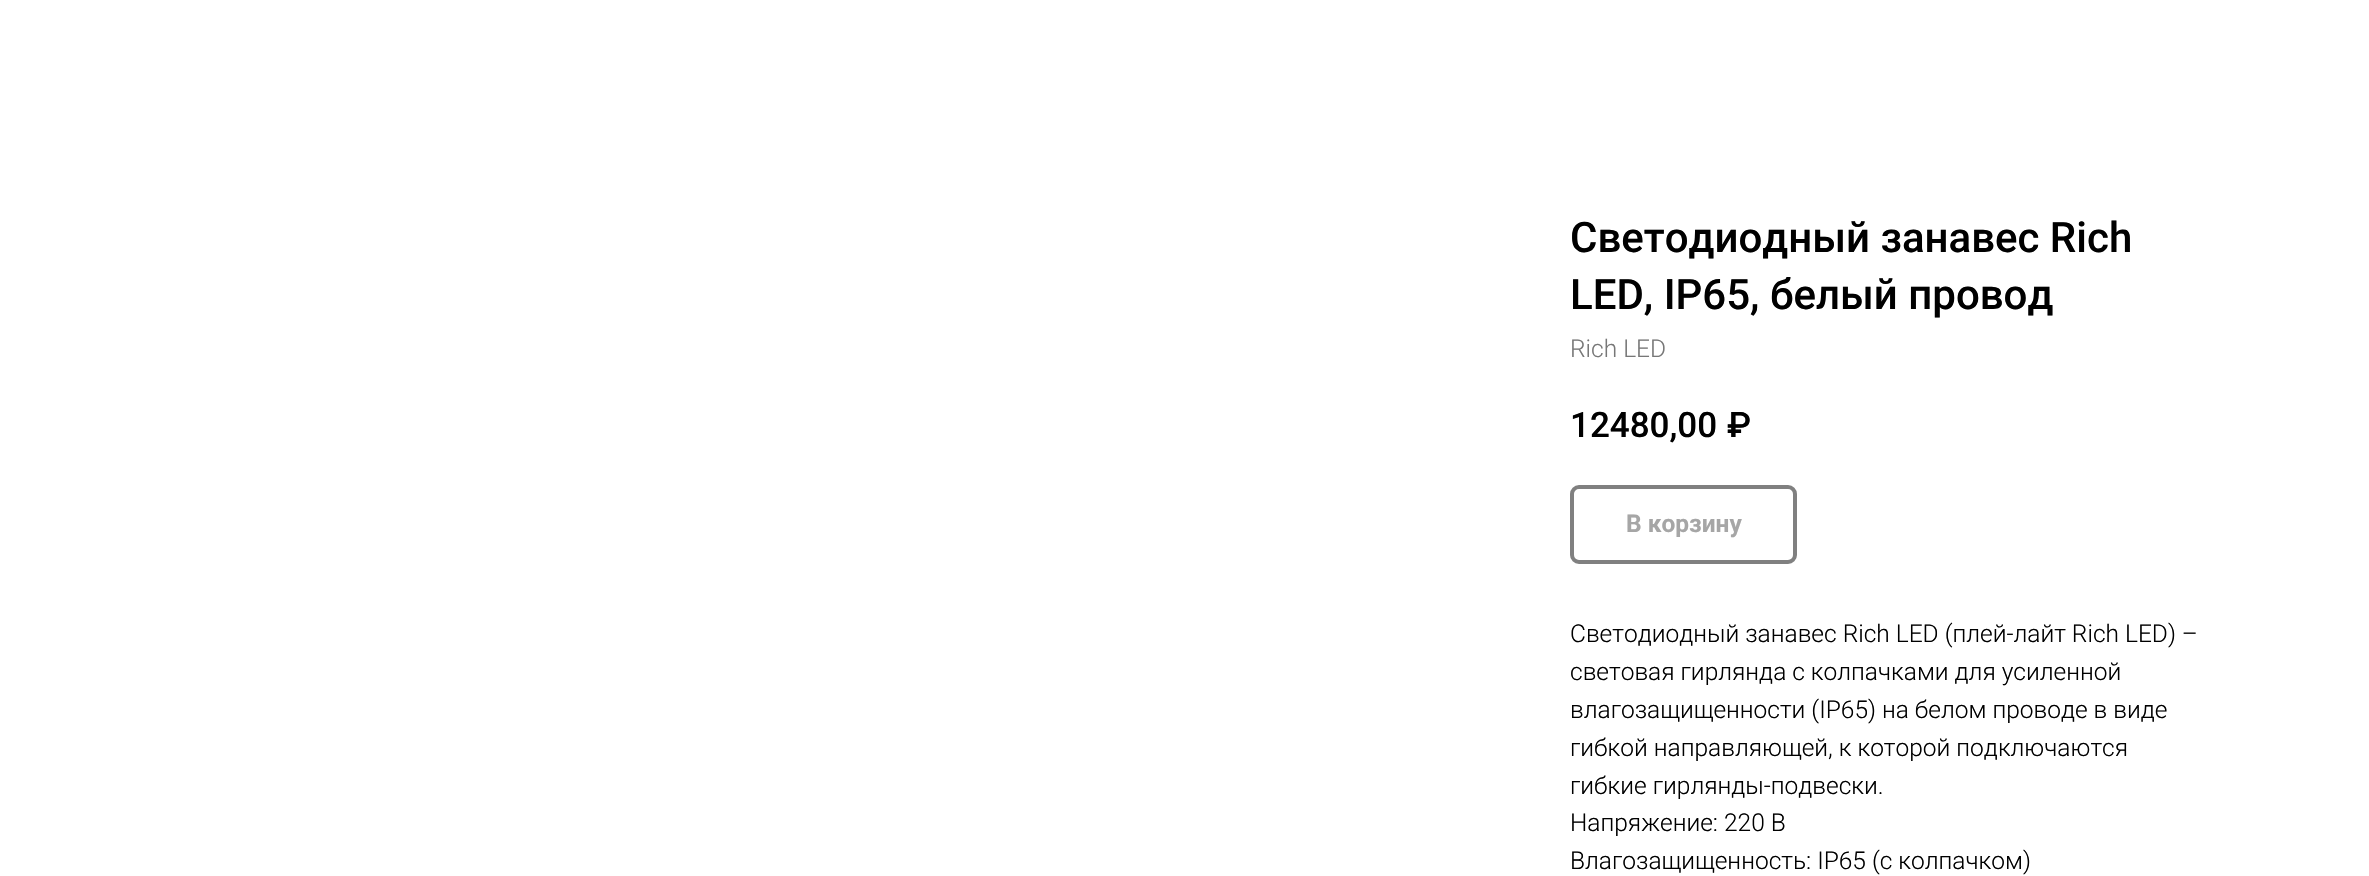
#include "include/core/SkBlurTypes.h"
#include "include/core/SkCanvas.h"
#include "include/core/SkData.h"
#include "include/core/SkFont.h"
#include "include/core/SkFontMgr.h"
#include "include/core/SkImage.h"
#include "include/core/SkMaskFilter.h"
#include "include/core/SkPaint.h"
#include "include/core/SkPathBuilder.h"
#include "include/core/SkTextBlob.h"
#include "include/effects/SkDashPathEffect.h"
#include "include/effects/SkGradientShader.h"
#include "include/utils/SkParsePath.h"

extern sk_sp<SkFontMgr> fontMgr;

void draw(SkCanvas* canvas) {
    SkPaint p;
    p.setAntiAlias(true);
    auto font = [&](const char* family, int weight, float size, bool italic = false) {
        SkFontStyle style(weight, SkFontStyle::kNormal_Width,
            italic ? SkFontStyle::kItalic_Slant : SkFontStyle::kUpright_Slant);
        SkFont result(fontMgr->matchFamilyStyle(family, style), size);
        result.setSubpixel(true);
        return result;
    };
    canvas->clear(0xFFFFFFFF);
    auto font1 = font("Roboto", 500, 42);
    p.setColor(0xFF000000);
    canvas->drawString("Светодиодный занавес Rich", 1570, 252, font1, p);
    canvas->drawString("LED, IP65, белый провод", 1570, 309, font1, p);
    auto font2 = font("Roboto", 300, 24.5f);
    p.setColor(0xFF777777);
    canvas->drawString("Rich LED", 1570, 357, font2, p);
    auto font3 = font("Roboto", 500, 35);
    p.setColor(0xFF000000);
    canvas->drawString("12480,00", 1570, 437, font3, p);
    canvas->drawString("₽", 1727, 437, font3, p);
    p.setStyle(SkPaint::kStroke_Style);
    p.setStrokeWidth(4);
    p.setColor(0xFF808080);
    canvas->drawRoundRect(SkRect::MakeLTRB(1572, 487, 1795, 562), 7, 7, p);
    auto font4 = font("Roboto", 700, 24.5f);
    p.setStyle(SkPaint::kFill_Style);
    p.setColor(0xFFA6A6A6);
    canvas->drawString("В корзину", 1626, 532, font4, p);
    p.setColor(0xFF000000);
    {
        const struct { const char* s; float x, y; } items[] = {
            {"Светодиодный занавес Rich LED (плей-лайт Rich LED) –", 1570, 642},
            {"световая гирлянда с колпачками для усиленной", 1570, 680},
            {"влагозащищенности (IP65) на белом проводе в виде", 1570, 718},
            {"гибкой направляющей, к которой подключаются", 1570, 756},
            {"гибкие гирлянды-подвески.", 1570, 794},
            {"Напряжение: 220 В", 1570, 831},
            {"Влагозащищенность: IP65 (с колпачком)", 1570, 869},
        };
        for (auto [s, x, y] : items) {
            canvas->drawString(s, x, y, font2, p);
        }
    }
}
